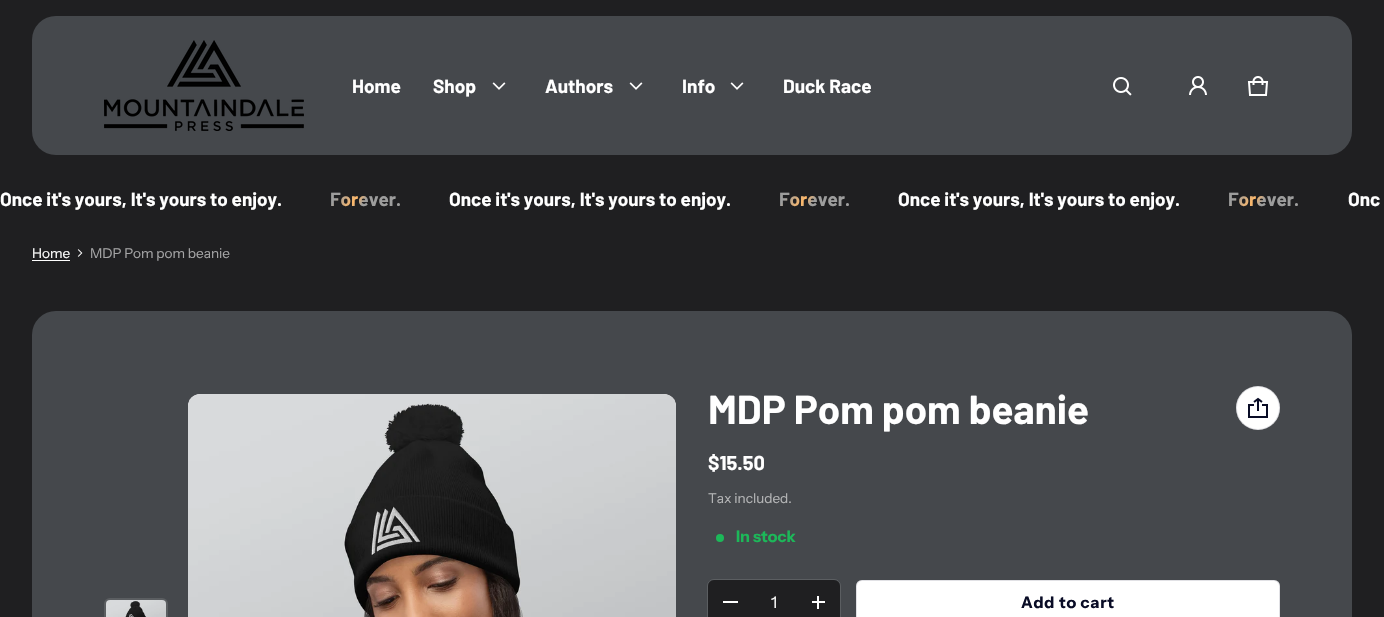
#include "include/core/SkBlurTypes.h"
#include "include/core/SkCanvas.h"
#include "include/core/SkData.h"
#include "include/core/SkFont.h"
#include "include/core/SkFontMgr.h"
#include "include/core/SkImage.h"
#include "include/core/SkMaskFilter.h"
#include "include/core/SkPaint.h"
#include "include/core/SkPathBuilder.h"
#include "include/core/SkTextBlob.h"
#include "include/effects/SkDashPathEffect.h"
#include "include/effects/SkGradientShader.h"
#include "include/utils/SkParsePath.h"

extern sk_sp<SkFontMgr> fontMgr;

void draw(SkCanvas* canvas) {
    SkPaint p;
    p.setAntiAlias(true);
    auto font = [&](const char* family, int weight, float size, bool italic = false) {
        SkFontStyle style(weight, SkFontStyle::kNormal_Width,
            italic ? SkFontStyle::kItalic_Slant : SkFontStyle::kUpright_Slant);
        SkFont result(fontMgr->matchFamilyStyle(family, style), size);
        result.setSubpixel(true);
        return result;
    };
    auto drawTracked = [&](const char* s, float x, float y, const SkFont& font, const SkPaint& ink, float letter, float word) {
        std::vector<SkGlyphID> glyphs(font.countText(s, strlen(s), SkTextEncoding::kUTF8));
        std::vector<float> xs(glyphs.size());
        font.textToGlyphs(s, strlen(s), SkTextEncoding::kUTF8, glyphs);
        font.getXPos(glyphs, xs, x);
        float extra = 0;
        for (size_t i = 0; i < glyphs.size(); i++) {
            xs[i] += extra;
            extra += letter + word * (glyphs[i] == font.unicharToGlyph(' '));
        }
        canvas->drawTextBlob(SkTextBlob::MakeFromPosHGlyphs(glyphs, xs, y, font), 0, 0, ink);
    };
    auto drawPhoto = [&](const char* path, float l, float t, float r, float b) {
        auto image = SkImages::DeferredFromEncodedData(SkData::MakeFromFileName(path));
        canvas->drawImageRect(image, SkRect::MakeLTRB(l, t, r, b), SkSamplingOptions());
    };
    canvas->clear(0xFF1F1F21);
    p.setColor(0xFF45484C);
    canvas->drawRoundRect(SkRect::MakeLTRB(32, 16, 1352, 155), 24, 24, p);
    drawPhoto("media/1.png", 104, 40, 304, 131);
    auto font1 = font("Barlow", 700, 19);
    p.setColor(0xFFFFFFFF);
    canvas->drawString("Home", 352, 93, font1, p);
    canvas->drawString("Shop", 433, 93, font1, p);
    drawPhoto("media/2.png", 492, 82, 506, 90);
    canvas->drawString("Authors", 545, 93, font1, p);
    drawPhoto("media/2.png", 629, 82, 643, 90);
    canvas->drawString("Info", 682, 93, font1, p);
    drawPhoto("media/2.png", 730, 82, 744, 90);
    canvas->drawString("Duck Race", 783, 93, font1, p);
    drawPhoto("media/3.png", 1113, 77, 1132, 96);
    drawPhoto("media/4.png", 1189, 76, 1207, 95);
    drawPhoto("media/5.png", 1247, 76, 1269, 96);
    auto font2 = font("Barlow", 700, 18.9f);
    canvas->drawString("Once it's yours, It's yours to enjoy.", 0, 206, font2, p);
    {
        const SkColor colors[] = {0xFF9D9D9D, 0xFF9D9D9D, 0xFFFEB869, 0xFF9D9D9D};
        const float stops[] = {0.11f, 0.16f, 0.39f, 0.51f};
        const SkPoint ends[] = {{337, 178}, {394, 220}};
        p.setShader(SkGradientShader::MakeLinear(ends, colors, stops, 4, SkTileMode::kClamp));
        p.setAlpha(255);
    }
    canvas->drawString("Forever.", 330, 206, font2, p);
    p.setShader(nullptr);
    p.setColor(0xFFFFFFFF);
    canvas->drawString("Once it's yours, It's yours to enjoy.", 449, 206, font2, p);
    {
        const SkColor colors[] = {0xFF9D9D9D, 0xFF9D9D9D, 0xFFFEB869, 0xFF9D9D9D};
        const float stops[] = {0.11f, 0.16f, 0.39f, 0.51f};
        const SkPoint ends[] = {{786, 178}, {843, 220}};
        p.setShader(SkGradientShader::MakeLinear(ends, colors, stops, 4, SkTileMode::kClamp));
        p.setAlpha(255);
    }
    canvas->drawString("Forever.", 779, 206, font2, p);
    p.setShader(nullptr);
    p.setColor(0xFFFFFFFF);
    canvas->drawString("Once it's yours, It's yours to enjoy.", 898, 206, font2, p);
    {
        const SkColor colors[] = {0xFF9D9D9D, 0xFF9D9D9D, 0xFFFEB869, 0xFF9D9D9D};
        const float stops[] = {0.11f, 0.16f, 0.39f, 0.51f};
        const SkPoint ends[] = {{1236, 178}, {1292, 220}};
        p.setShader(SkGradientShader::MakeLinear(ends, colors, stops, 4, SkTileMode::kClamp));
        p.setAlpha(255);
    }
    canvas->drawString("Forever.", 1228, 206, font2, p);
    p.setShader(nullptr);
    p.setColor(0xFFFFFFFF);
    canvas->drawString("Onc", 1348, 206, font2, p);
    auto font3 = font("Instrument Sans", 400, 13.6f);
    canvas->drawString("Home", 32, 258, font3, p);
    canvas->drawRect(SkRect::MakeLTRB(32, 260, 70, 261), p);
    drawPhoto("media/6.png", 77, 249, 83, 257);
    p.setColor(0xFFA5A5A6);
    canvas->drawString("MDP Pom pom beanie", 90, 258, font3, p);
    p.setColor(0xFF45484C);
    canvas->drawRoundRect(SkRect::MakeLTRB(32, 311, 1352, 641), 24, 24, p);
    p.setColor(0xFF5B5E61);
    canvas->drawRoundRect(SkRect::MakeLTRB(104, 598, 168, 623), 6, 6, p);
    drawPhoto("media/7.png", 106, 600, 166, 617);
    p.setColor(0xFFEFEFEF);
    canvas->drawRoundRect(SkRect::MakeLTRB(188, 394, 676, 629), 12, 12, p);
    drawPhoto("media/8.png", 188, 394, 676, 617);
    auto font4 = font("Barlow", 700, 40.25f);
    p.setColor(0xFFFFFFFF);
    canvas->drawString("MDP Pom pom beanie", 708, 424, font4, p);
    canvas->drawCircle(1258, 408, 22, p);
    p.setStyle(SkPaint::kStroke_Style);
    p.setStrokeWidth(1);
    p.setColor(0x1F090C26);
    canvas->drawCircle(1258, 408, 21.5f, p);
    drawPhoto("media/9.png", 1248, 397, 1268, 418);
    auto font5 = font("Barlow", 700, 20);
    p.setStyle(SkPaint::kFill_Style);
    p.setColor(0xFFFFFFFF);
    canvas->drawString("$15.50", 708, 470, font5, p);
    p.setColor(0xFFB5B6B7);
    canvas->drawString("Tax included.", 708, 503, font3, p);
    p.setColor(0xFF1CB859);
    canvas->drawCircle(720, 538, 4, p);
    auto font6 = font("Instrument Sans", 700, 16);
    canvas->drawString("In stock", 736, 542, font6, p);
    p.setStyle(SkPaint::kStroke_Style);
    p.setColor(0xFF5B5E61);
    canvas->drawRoundRect(SkRect::MakeLTRB(707.5f, 579.5f, 840.5f, 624.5f), 6.5f, 6.5f, p);
    p.setStyle(SkPaint::kFill_Style);
    p.setColor(0xFF1F1F21);
    canvas->drawRoundRect(SkRect::MakeLTRB(708, 580, 840, 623), 6, 6, p);
    p.setColor(0xFFFFFFFF);
    canvas->drawRect(SkRect::MakeLTRB(723, 601, 738, 603), p);
    auto font7 = font("Instrument Sans", 400, 16);
    canvas->drawString("1", 771, 608, font7, p);
    canvas->drawRect(SkRect::MakeLTRB(812, 601, 825, 603), p);
    canvas->drawRect(SkRect::MakeLTRB(817, 596, 819, 609), p);
    canvas->drawRoundRect(SkRect::MakeLTRB(856, 580, 1280, 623), 6, 6, p);
    p.setStyle(SkPaint::kStroke_Style);
    p.setColor(0x1F090C26);
    canvas->drawRoundRect(SkRect::MakeLTRB(856.5f, 580.5f, 1279.5f, 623.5f), 5.5f, 5.5f, p);
    p.setStyle(SkPaint::kFill_Style);
    p.setColor(0xFF090C26);
    drawTracked("Add to cart", 1021, 608, font6, p, 0.75f, 0);
}
